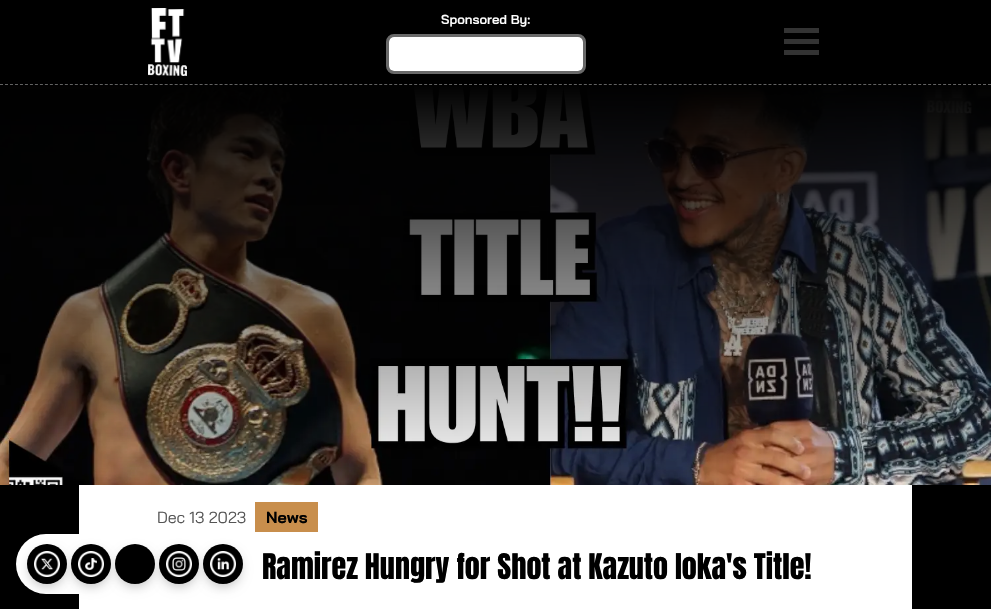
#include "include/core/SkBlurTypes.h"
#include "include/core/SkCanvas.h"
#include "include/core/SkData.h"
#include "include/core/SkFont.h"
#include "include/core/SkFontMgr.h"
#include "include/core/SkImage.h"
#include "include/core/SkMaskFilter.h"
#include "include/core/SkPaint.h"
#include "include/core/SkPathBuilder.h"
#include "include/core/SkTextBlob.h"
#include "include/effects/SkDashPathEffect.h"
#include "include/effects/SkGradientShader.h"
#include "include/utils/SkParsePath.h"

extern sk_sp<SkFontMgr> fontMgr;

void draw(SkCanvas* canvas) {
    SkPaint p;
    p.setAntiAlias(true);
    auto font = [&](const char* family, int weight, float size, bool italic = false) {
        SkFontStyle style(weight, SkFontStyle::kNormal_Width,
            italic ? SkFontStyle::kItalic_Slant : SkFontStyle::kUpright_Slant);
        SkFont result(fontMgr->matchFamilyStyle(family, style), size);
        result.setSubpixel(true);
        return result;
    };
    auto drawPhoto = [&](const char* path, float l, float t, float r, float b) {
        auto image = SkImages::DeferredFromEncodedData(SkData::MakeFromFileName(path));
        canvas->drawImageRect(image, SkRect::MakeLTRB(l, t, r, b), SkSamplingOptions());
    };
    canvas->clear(0xFFFFFFFF);
    p.setColor(0xFF000000);
    canvas->drawRect(SkRect::MakeLTRB(0, 0, 991, 85), p);
    p.setStyle(SkPaint::kStroke_Style);
    p.setStrokeWidth(1);
    p.setColor(0xFF626262);
    p.setPathEffect(SkDashPathEffect::Make({{3, 1.99f}}, 0));
    canvas->drawPath(SkPathBuilder().moveTo(0, 84.5f).lineTo(991, 84.5f).detach(), p);
    p.setPathEffect(nullptr);
    drawPhoto("media/1.png", 148, 8, 187, 76);
    auto font1 = font("Bai Jamjuree", 600, 13);
    p.setStyle(SkPaint::kFill_Style);
    p.setColor(0xFFFFFFFF);
    canvas->drawString("Sponsored By:", 441, 24, font1, p);
    p.setStyle(SkPaint::kStroke_Style);
    p.setStrokeWidth(3);
    p.setColor(0xFF696969);
    canvas->drawRoundRect(SkRect::MakeLTRB(387.5f, 35.5f, 584.5f, 72.5f), 6.5f, 6.5f, p);
    drawPhoto("media/2.png", 389, 37, 583, 71);
    p.setStyle(SkPaint::kFill_Style);
    {
        const struct { float l, t, r, b; SkColor color; } items[] = {
            {784, 28, 819, 33, 0xFF333333},
            {784, 39, 819, 44, 0xFF333333},
            {784, 50, 819, 55, 0xFF333333},
        };
        for (auto [l, t, r, b, color] : items) {
            p.setColor(color);
            canvas->drawRect(SkRect::MakeLTRB(l, t, r, b), p);
        }
    }
    drawPhoto("media/3.png", 0, 85, 991, 485);
    p.setColor(0xFF000000);
    canvas->drawRect(SkRect::MakeLTRB(0, 485, 79, 609), p);
    p.setColor(0xFFFFFFFF);
    canvas->drawRoundRect(SkRect::MakeLTRB(16, 534, 254, 594), 30, 30, p);
    p.setColor(0x26000000);
    p.setMaskFilter(SkMaskFilter::MakeBlur(kNormal_SkBlurStyle, 6));
    canvas->drawRoundRect(SkRect::MakeLTRB(210, 555, 236, 581), 13, 13, p);
    p.setMaskFilter(nullptr);
    p.setColor(0x2E000000);
    p.setMaskFilter(SkMaskFilter::MakeBlur(kNormal_SkBlurStyle, 5.5f));
    canvas->drawRoundRect(SkRect::MakeLTRB(205, 551, 241, 587), 18, 18, p);
    p.setMaskFilter(nullptr);
    p.setColor(0xFF000000);
    canvas->drawCircle(223, 564, 20, p);
    drawPhoto("media/7.png", 210, 551, 236, 577);
    p.setColor(0x26000000);
    p.setMaskFilter(SkMaskFilter::MakeBlur(kNormal_SkBlurStyle, 6));
    canvas->drawRoundRect(SkRect::MakeLTRB(166, 555, 192, 581), 13, 13, p);
    p.setMaskFilter(nullptr);
    p.setColor(0x2E000000);
    p.setMaskFilter(SkMaskFilter::MakeBlur(kNormal_SkBlurStyle, 5.5f));
    canvas->drawRoundRect(SkRect::MakeLTRB(161, 551, 197, 587), 18, 18, p);
    p.setMaskFilter(nullptr);
    p.setColor(0xFF000000);
    canvas->drawCircle(179, 564, 20, p);
    drawPhoto("media/6.png", 166, 551, 192, 577);
    p.setColor(0x26000000);
    p.setMaskFilter(SkMaskFilter::MakeBlur(kNormal_SkBlurStyle, 6));
    canvas->drawRoundRect(SkRect::MakeLTRB(122, 555, 148, 581), 13, 13, p);
    p.setMaskFilter(nullptr);
    p.setColor(0x2E000000);
    p.setMaskFilter(SkMaskFilter::MakeBlur(kNormal_SkBlurStyle, 5.5f));
    canvas->drawRoundRect(SkRect::MakeLTRB(117, 551, 153, 587), 18, 18, p);
    p.setMaskFilter(nullptr);
    p.setColor(0xFF000000);
    canvas->drawCircle(135, 564, 20, p);
    p.setColor(0x26000000);
    p.setMaskFilter(SkMaskFilter::MakeBlur(kNormal_SkBlurStyle, 6));
    canvas->drawRoundRect(SkRect::MakeLTRB(78, 555, 104, 581), 13, 13, p);
    p.setMaskFilter(nullptr);
    p.setColor(0x2E000000);
    p.setMaskFilter(SkMaskFilter::MakeBlur(kNormal_SkBlurStyle, 5.5f));
    canvas->drawRoundRect(SkRect::MakeLTRB(73, 551, 109, 587), 18, 18, p);
    p.setMaskFilter(nullptr);
    p.setColor(0xFF000000);
    canvas->drawCircle(91, 564, 20, p);
    drawPhoto("media/5.png", 78, 551, 104, 577);
    p.setColor(0x26000000);
    p.setMaskFilter(SkMaskFilter::MakeBlur(kNormal_SkBlurStyle, 6));
    canvas->drawRoundRect(SkRect::MakeLTRB(34, 555, 60, 581), 13, 13, p);
    p.setMaskFilter(nullptr);
    p.setColor(0x2E000000);
    p.setMaskFilter(SkMaskFilter::MakeBlur(kNormal_SkBlurStyle, 5.5f));
    canvas->drawRoundRect(SkRect::MakeLTRB(29, 551, 65, 587), 18, 18, p);
    p.setMaskFilter(nullptr);
    p.setColor(0xFF000000);
    canvas->drawCircle(47, 564, 20, p);
    drawPhoto("media/4.png", 34, 551, 60, 577);
    auto font2 = font("Bai Jamjuree", 400, 16);
    p.setColor(0xFF555555);
    canvas->drawString("Dec 13 2023", 157, 523, font2, p);
    p.setColor(0xFFC88E4C);
    canvas->drawRect(SkRect::MakeLTRB(255, 502, 318, 532), p);
    auto font3 = font("Bai Jamjuree", 700, 16);
    p.setColor(0xFF000000);
    canvas->drawString("News", 266, 523, font3, p);
    auto font4 = font("Anton", 400, 30.1f);
    canvas->drawString("Ramirez Hungry for Shot at Kazuto Ioka's Title!", 262, 579, font4, p);
    canvas->drawRect(SkRect::MakeLTRB(912, 485, 991, 609), p);
}
